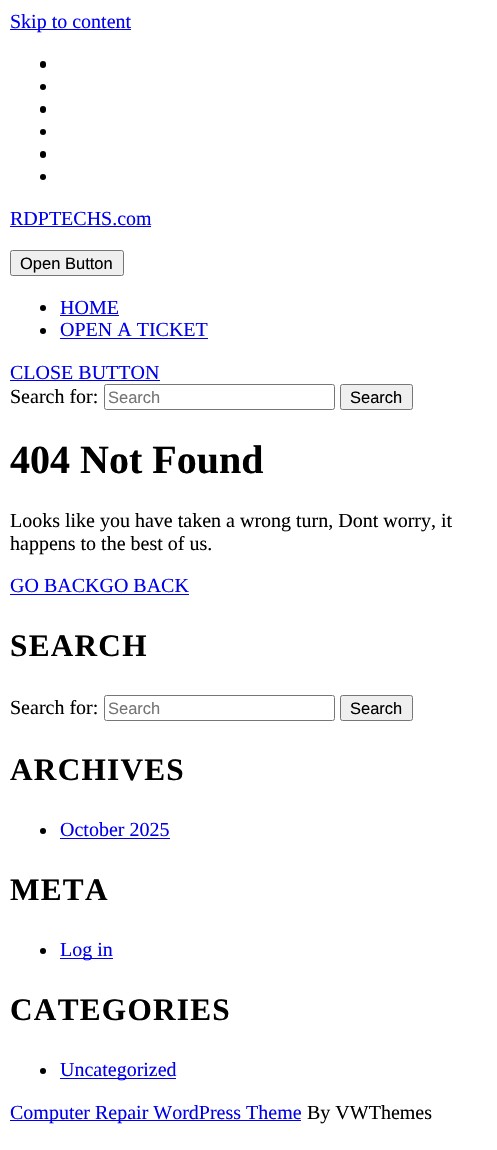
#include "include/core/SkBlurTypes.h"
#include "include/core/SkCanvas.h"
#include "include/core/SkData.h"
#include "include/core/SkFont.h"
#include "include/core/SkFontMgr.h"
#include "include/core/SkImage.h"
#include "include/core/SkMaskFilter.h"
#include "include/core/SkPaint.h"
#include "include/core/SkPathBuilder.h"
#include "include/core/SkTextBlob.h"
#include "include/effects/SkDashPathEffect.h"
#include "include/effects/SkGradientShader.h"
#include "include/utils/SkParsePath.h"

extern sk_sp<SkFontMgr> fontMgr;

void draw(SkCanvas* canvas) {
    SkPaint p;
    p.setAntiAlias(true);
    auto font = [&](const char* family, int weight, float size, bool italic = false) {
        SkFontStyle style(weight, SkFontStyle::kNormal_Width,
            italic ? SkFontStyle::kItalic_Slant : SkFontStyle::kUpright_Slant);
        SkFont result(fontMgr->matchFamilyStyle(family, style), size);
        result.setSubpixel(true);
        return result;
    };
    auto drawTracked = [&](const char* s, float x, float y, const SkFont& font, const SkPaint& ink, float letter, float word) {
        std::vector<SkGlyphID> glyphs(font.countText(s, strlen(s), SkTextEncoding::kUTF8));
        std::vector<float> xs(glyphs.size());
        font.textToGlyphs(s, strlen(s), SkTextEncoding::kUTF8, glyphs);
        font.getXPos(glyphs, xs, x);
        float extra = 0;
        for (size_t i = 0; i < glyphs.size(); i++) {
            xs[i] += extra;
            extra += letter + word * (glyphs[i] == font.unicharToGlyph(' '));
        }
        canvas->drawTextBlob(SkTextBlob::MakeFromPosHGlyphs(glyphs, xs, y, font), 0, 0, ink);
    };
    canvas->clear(0xFFFFFFFF);
    p.setColor(0xFF0000EE);
    canvas->drawRect(SkRect::MakeLTRB(10, 29, 131, 30), p);
    auto font1 = font("Liberation Serif", 400, 20);
    canvas->drawString("Skip to content", 10, 28, font1, p);
    p.setColor(0xFF000000);
    canvas->drawRoundRect(SkRect::MakeLTRB(40, 61, 46, 68), 3, 3, p);
    canvas->drawCircle(43, 87, 3, p);
    canvas->drawRoundRect(SkRect::MakeLTRB(40, 106, 46, 113), 3, 3, p);
    canvas->drawCircle(43, 132, 3, p);
    canvas->drawRoundRect(SkRect::MakeLTRB(40, 151, 46, 158), 3, 3, p);
    canvas->drawCircle(43, 177, 3, p);
    p.setColor(0xFF0000EE);
    canvas->drawString("RDPTECHS.com", 10, 225, font1, p);
    canvas->drawRect(SkRect::MakeLTRB(10, 226, 151, 227), p);
    p.setColor(0xFFEFEFEF);
    canvas->drawRoundRect(SkRect::MakeLTRB(10.5f, 250.5f, 123.5f, 275.5f), 2, 2, p);
    p.setStyle(SkPaint::kStroke_Style);
    p.setStrokeWidth(1);
    p.setColor(0xFF767676);
    canvas->drawRoundRect(SkRect::MakeLTRB(10.5f, 250.5f, 123.5f, 275.5f), 2, 2, p);
    auto font2 = font("Liberation Sans", 400, 16.5f);
    p.setStyle(SkPaint::kFill_Style);
    p.setColor(0xFF000000);
    canvas->drawString("Open Button", 20, 269, font2, p);
    canvas->drawCircle(43, 308, 3, p);
    p.setColor(0xFF0000EE);
    canvas->drawString("HOME", 60, 314, font1, p);
    canvas->drawRect(SkRect::MakeLTRB(60, 315, 119, 316), p);
    p.setColor(0xFF000000);
    canvas->drawCircle(43, 331, 3, p);
    p.setColor(0xFF0000EE);
    canvas->drawString("OPEN A TICKET", 60, 336, font1, p);
    canvas->drawRect(SkRect::MakeLTRB(60, 338, 208, 339), p);
    canvas->drawString("CLOSE BUTTON", 10, 379, font1, p);
    canvas->drawRect(SkRect::MakeLTRB(10, 380, 160, 381), p);
    p.setColor(0xFF000000);
    canvas->drawString("Search for:", 10, 403, font1, p);
    p.setStyle(SkPaint::kStroke_Style);
    p.setColor(0xFF767676);
    canvas->drawRoundRect(SkRect::MakeLTRB(104.5f, 384.5f, 334.5f, 409.5f), 2, 2, p);
    p.setStyle(SkPaint::kFill_Style);
    p.setColor(0xFF757575);
    canvas->drawString("Search", 108, 403, font2, p);
    p.setColor(0xFFEFEFEF);
    canvas->drawRoundRect(SkRect::MakeLTRB(340.5f, 384.5f, 412.5f, 409.5f), 2, 2, p);
    p.setStyle(SkPaint::kStroke_Style);
    p.setColor(0xFF767676);
    canvas->drawRoundRect(SkRect::MakeLTRB(340.5f, 384.5f, 412.5f, 409.5f), 2, 2, p);
    p.setStyle(SkPaint::kFill_Style);
    p.setColor(0xFF000000);
    canvas->drawString("Search", 350, 403, font2, p);
    auto font3 = font("Liberation Serif", 700, 40);
    canvas->drawString("404 Not Found", 10, 473, font3, p);
    canvas->drawString("Looks like you have taken a wrong turn, Dont worry, it", 10, 527, font1, p);
    canvas->drawString("happens to the best of us.", 10, 550, font1, p);
    p.setColor(0xFF0000EE);
    canvas->drawString("GO BACKGO BACK", 10, 592, font1, p);
    canvas->drawRect(SkRect::MakeLTRB(10, 594, 189, 595), p);
    auto font4 = font("Liberation Serif", 700, 31.25f);
    p.setColor(0xFF000000);
    drawTracked("SEARCH", 10, 656, font4, p, 1.25f, 0);
    canvas->drawString("Search for:", 10, 714, font1, p);
    p.setStyle(SkPaint::kStroke_Style);
    p.setColor(0xFF767676);
    canvas->drawRoundRect(SkRect::MakeLTRB(104.5f, 695.5f, 334.5f, 720.5f), 2, 2, p);
    p.setStyle(SkPaint::kFill_Style);
    p.setColor(0xFF757575);
    canvas->drawString("Search", 108, 714, font2, p);
    p.setColor(0xFFEFEFEF);
    canvas->drawRoundRect(SkRect::MakeLTRB(340.5f, 695.5f, 412.5f, 720.5f), 2, 2, p);
    p.setStyle(SkPaint::kStroke_Style);
    p.setColor(0xFF767676);
    canvas->drawRoundRect(SkRect::MakeLTRB(340.5f, 695.5f, 412.5f, 720.5f), 2, 2, p);
    p.setStyle(SkPaint::kFill_Style);
    p.setColor(0xFF000000);
    canvas->drawString("Search", 350, 714, font2, p);
    drawTracked("ARCHIVES", 10, 780, font4, p, 1.25f, 0);
    canvas->drawCircle(43, 831, 3, p);
    p.setColor(0xFF0000EE);
    canvas->drawString("October 2025", 60, 836, font1, p);
    canvas->drawRect(SkRect::MakeLTRB(60, 838, 170, 839), p);
    p.setColor(0xFF000000);
    drawTracked("META", 10, 900, font4, p, 1.25f, 0);
    canvas->drawCircle(43, 951, 3, p);
    p.setColor(0xFF0000EE);
    canvas->drawRect(SkRect::MakeLTRB(60, 958, 113, 959), p);
    canvas->drawString("Log in", 60, 956, font1, p);
    p.setColor(0xFF000000);
    drawTracked("CATEGORIES", 10, 1020, font4, p, 1.25f, 0);
    canvas->drawCircle(43, 1071, 3, p);
    p.setColor(0xFF0000EE);
    canvas->drawRect(SkRect::MakeLTRB(60, 1078, 176, 1079), p);
    canvas->drawString("Uncategorized", 60, 1076, font1, p);
    canvas->drawRect(SkRect::MakeLTRB(10, 1120, 301, 1121), p);
    canvas->drawString("Computer Repair WordPress Theme", 10, 1119, font1, p);
    p.setColor(0xFF000000);
    canvas->drawString("By VWThemes", 307, 1119, font1, p);
}
